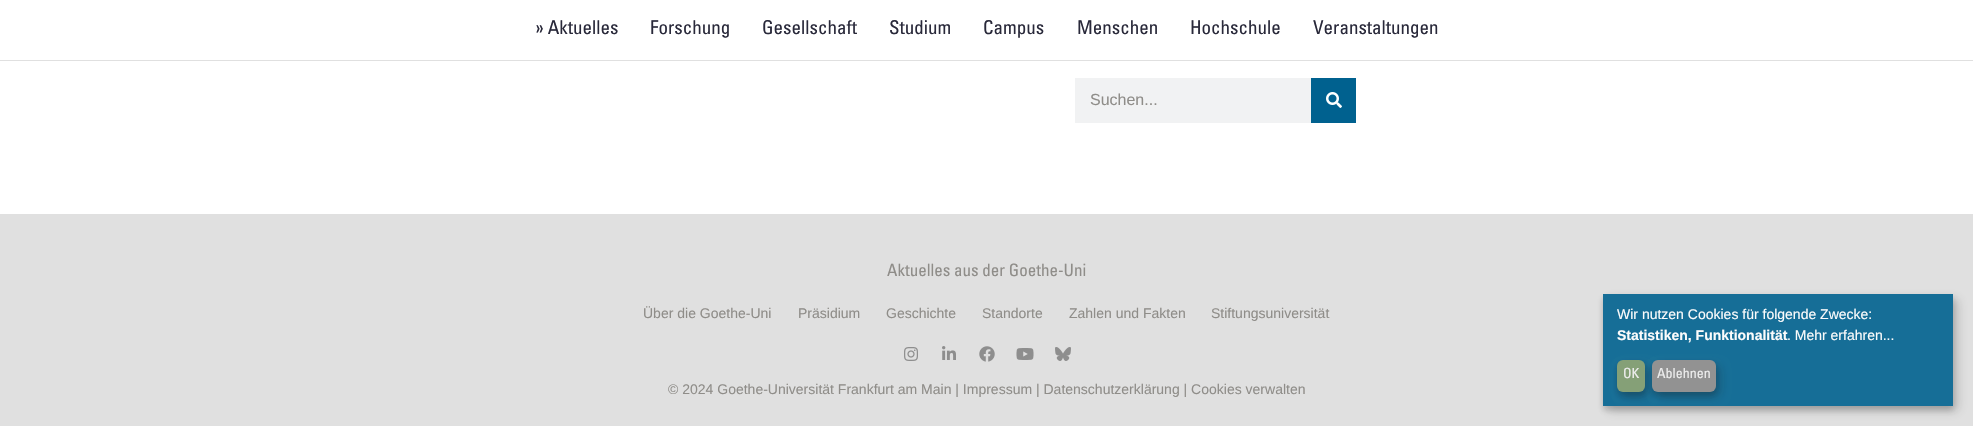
#include "include/core/SkBlurTypes.h"
#include "include/core/SkCanvas.h"
#include "include/core/SkData.h"
#include "include/core/SkFont.h"
#include "include/core/SkFontMgr.h"
#include "include/core/SkImage.h"
#include "include/core/SkMaskFilter.h"
#include "include/core/SkPaint.h"
#include "include/core/SkPathBuilder.h"
#include "include/core/SkTextBlob.h"
#include "include/effects/SkDashPathEffect.h"
#include "include/effects/SkGradientShader.h"
#include "include/utils/SkParsePath.h"

extern sk_sp<SkFontMgr> fontMgr;

void draw(SkCanvas* canvas) {
    SkPaint p;
    p.setAntiAlias(true);
    auto font = [&](const char* family, int weight, float size, bool italic = false) {
        SkFontStyle style(weight, SkFontStyle::kNormal_Width,
            italic ? SkFontStyle::kItalic_Slant : SkFontStyle::kUpright_Slant);
        SkFont result(fontMgr->matchFamilyStyle(family, style), size);
        result.setSubpixel(true);
        return result;
    };
    auto drawPhoto = [&](const char* path, float l, float t, float r, float b) {
        auto image = SkImages::DeferredFromEncodedData(SkData::MakeFromFileName(path));
        canvas->drawImageRect(image, SkRect::MakeLTRB(l, t, r, b), SkSamplingOptions());
    };
    canvas->clear(0xFFFFFFFF);
    p.setColor(0xFFE0E0E0);
    canvas->drawRect(SkRect::MakeLTRB(0, 60, 1973, 61), p);
    auto font1 = font("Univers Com", 400, 19);
    p.setColor(0xFF29293A);
    {
        const struct { const char* s; float x, y; } items[] = {
            {"» Aktuelles", 535, 34},
            {"Forschung", 650, 34},
            {"Gesellschaft", 762, 34},
            {"Studium", 889, 34},
            {"Campus", 983, 34},
            {"Menschen", 1077, 34},
            {"Hochschule", 1190, 34},
            {"Veranstaltungen", 1313, 34},
        };
        for (auto [s, x, y] : items) {
            canvas->drawString(s, x, y, font1, p);
        }
    }
    p.setColor(0xFFF1F2F3);
    canvas->drawRect(SkRect::MakeLTRB(1075, 78, 1311, 123), p);
    auto font2 = font("Liberation Sans", 400, 16);
    p.setColor(0xFF8F8D89);
    canvas->drawString("Suchen...", 1090, 105, font2, p);
    p.setColor(0xFF00618F);
    canvas->drawRect(SkRect::MakeLTRB(1311, 78, 1356, 123), p);
    drawPhoto("media/1.png", 1326, 92, 1342, 108);
    p.setColor(0xFFE0E0E0);
    canvas->drawRect(SkRect::MakeLTRB(0, 214, 1973, 426), p);
    auto font3 = font("Univers Com", 400, 17);
    p.setColor(0xFF8F8D89);
    canvas->drawString("Aktuelles aus der Goethe-Uni", 887, 276, font3, p);
    auto font4 = font("Liberation Sans", 400, 14);
    {
        const struct { const char* s; float x, y; } items[] = {
            {"Über die Goethe-Uni", 643, 318},
            {"Präsidium", 798, 318},
            {"Geschichte", 886, 318},
            {"Standorte", 982, 318},
            {"Zahlen und Fakten", 1069, 318},
            {"Stiftungsuniversität", 1211, 318},
        };
        for (auto [s, x, y] : items) {
            canvas->drawString(s, x, y, font4, p);
        }
    }
    drawPhoto("media/2.png", 904, 347, 918, 361);
    drawPhoto("media/3.png", 942, 346, 956, 360);
    drawPhoto("media/4.png", 979, 346, 995, 362);
    drawPhoto("media/5.png", 1016, 348, 1034, 360);
    drawPhoto("media/6.png", 1055, 347, 1071, 361);
    canvas->drawString("© 2024 Goethe-Universität Frankfurt am Main | Impressum | Datenschutzerklärung | Cookies verwalten", 668, 394, font4, p);
    p.setColor(0x30161616);
    p.setMaskFilter(SkMaskFilter::MakeBlur(kNormal_SkBlurStyle, 5));
    canvas->drawRect(SkRect::MakeLTRB(1608, 299, 1958, 411), p);
    p.setMaskFilter(nullptr);
    p.setColor(0x33161616);
    p.setMaskFilter(SkMaskFilter::MakeBlur(kNormal_SkBlurStyle, 3));
    canvas->drawRect(SkRect::MakeLTRB(1603, 298, 1953, 410), p);
    p.setMaskFilter(nullptr);
    p.setColor(0xFF166E97);
    canvas->drawRect(SkRect::MakeLTRB(1603, 294, 1953, 406), p);
    p.setColor(0xFFFCFCFC);
    canvas->drawString("Wir nutzen Cookies für folgende Zwecke:", 1617, 319, font4, p);
    auto font5 = font("Liberation Sans", 700, 14);
    canvas->drawString("Statistiken, Funktionalität", 1617, 340, font5, p);
    canvas->drawString(". Mehr erfahren...", 1787, 340, font4, p);
    p.setColor(0x30161616);
    p.setMaskFilter(SkMaskFilter::MakeBlur(kNormal_SkBlurStyle, 5));
    canvas->drawRoundRect(SkRect::MakeLTRB(1622, 365, 1650, 397), 6, 6, p);
    p.setMaskFilter(nullptr);
    p.setColor(0x33161616);
    p.setMaskFilter(SkMaskFilter::MakeBlur(kNormal_SkBlurStyle, 3));
    canvas->drawRoundRect(SkRect::MakeLTRB(1617, 364, 1645, 396), 6, 6, p);
    p.setMaskFilter(nullptr);
    p.setColor(0xFF85A077);
    canvas->drawRoundRect(SkRect::MakeLTRB(1617, 360, 1645, 392), 6, 6, p);
    auto font6 = font("Univers Com", 400, 14);
    p.setColor(0xFFEDEDED);
    canvas->drawString("OK", 1623, 378, font6, p);
    p.setColor(0x30161616);
    p.setMaskFilter(SkMaskFilter::MakeBlur(kNormal_SkBlurStyle, 5));
    canvas->drawRoundRect(SkRect::MakeLTRB(1657, 365, 1721, 397), 6, 6, p);
    p.setMaskFilter(nullptr);
    p.setColor(0x33161616);
    p.setMaskFilter(SkMaskFilter::MakeBlur(kNormal_SkBlurStyle, 3));
    canvas->drawRoundRect(SkRect::MakeLTRB(1652, 364, 1716, 396), 6, 6, p);
    p.setMaskFilter(nullptr);
    p.setColor(0xFF929292);
    canvas->drawRoundRect(SkRect::MakeLTRB(1652, 360, 1716, 392), 6, 6, p);
    p.setColor(0xFFEDEDED);
    canvas->drawString("Ablehnen", 1657, 378, font6, p);
}
